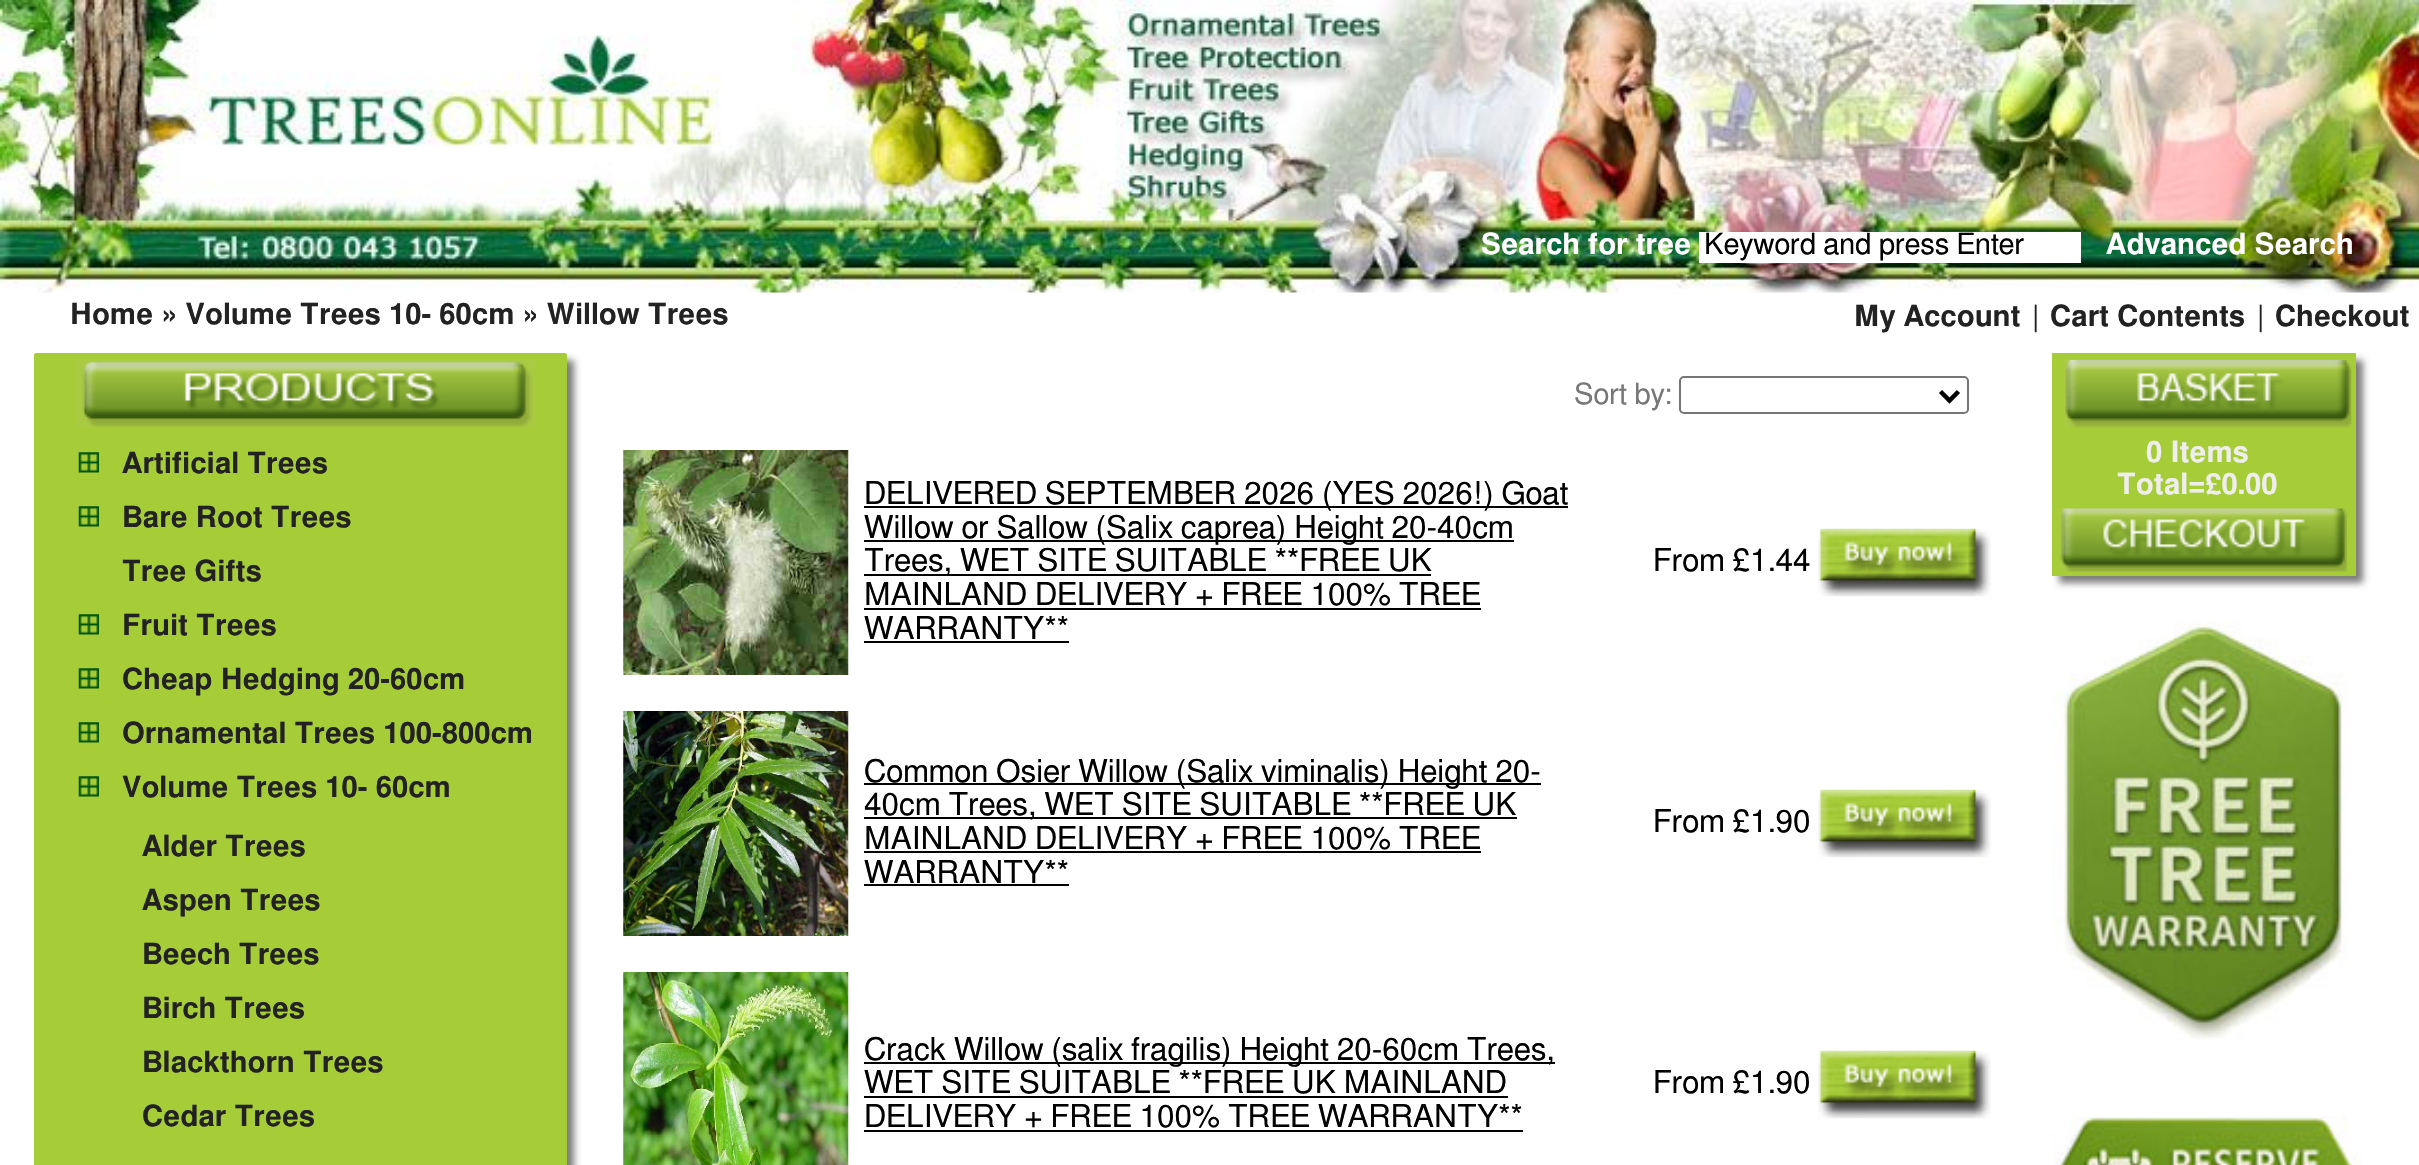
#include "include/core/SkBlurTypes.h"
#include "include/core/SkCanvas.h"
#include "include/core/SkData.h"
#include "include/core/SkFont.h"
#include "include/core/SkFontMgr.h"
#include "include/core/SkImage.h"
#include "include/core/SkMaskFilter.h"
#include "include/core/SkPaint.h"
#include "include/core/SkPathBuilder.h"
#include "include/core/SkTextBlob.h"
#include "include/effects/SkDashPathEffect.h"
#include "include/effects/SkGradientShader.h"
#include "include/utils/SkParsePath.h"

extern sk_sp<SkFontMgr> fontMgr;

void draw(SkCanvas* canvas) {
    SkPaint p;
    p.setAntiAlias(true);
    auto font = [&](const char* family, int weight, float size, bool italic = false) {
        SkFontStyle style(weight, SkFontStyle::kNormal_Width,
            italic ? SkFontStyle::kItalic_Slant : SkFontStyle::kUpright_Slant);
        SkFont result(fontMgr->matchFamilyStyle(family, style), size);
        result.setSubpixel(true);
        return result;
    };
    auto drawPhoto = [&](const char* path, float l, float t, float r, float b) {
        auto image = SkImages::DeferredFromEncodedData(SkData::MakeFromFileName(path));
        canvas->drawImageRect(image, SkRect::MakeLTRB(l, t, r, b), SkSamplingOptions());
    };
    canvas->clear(0xFFFFFFFF);
    drawPhoto("media/1.png", 0, 0, 2419, 293);
    auto font1 = font("FreeSans", 600, 29.25f);
    p.setColor(0xFFFFFFFF);
    canvas->drawString("Search for tree", 1481, 254, font1, p);
    canvas->drawRect(SkRect::MakeLTRB(1699, 232, 2081, 263), p);
    auto font2 = font("FreeSans", 400, 29.25f);
    p.setColor(0xFF000000);
    canvas->drawString("Keyword and press Enter", 1704, 254, font2, p);
    p.setColor(0xFFFFFFFF);
    canvas->drawString("Advanced Search", 2106, 254, font1, p);
    p.setColor(0xFF222222);
    canvas->drawString("Home » Volume Trees 10- 60cm » Willow Trees", 70, 324, font1, p);
    canvas->drawString("My Account", 1854, 326, font1, p);
    canvas->drawString("|", 2032, 326, font2, p);
    canvas->drawString("Cart Contents", 2050, 326, font1, p);
    canvas->drawString("|", 2257, 326, font2, p);
    canvas->drawString("Checkout", 2275, 326, font1, p);
    p.setColor(0xFF7C7C7C);
    p.setMaskFilter(SkMaskFilter::MakeBlur(kNormal_SkBlurStyle, 3.5f));
    canvas->drawRoundRect(SkRect::MakeLTRB(41, 360, 574, 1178), 2, 2, p);
    p.setMaskFilter(nullptr);
    p.setColor(0xFFA6CC38);
    canvas->drawPath(SkPathBuilder().moveTo(36, 353).lineTo(565, 353).cubicTo(566, 353, 567, 354, 567, 355).lineTo(567, 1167).lineTo(34, 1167).lineTo(34, 355).cubicTo(34, 354, 35, 353, 36, 353).close().detach(), p);
    drawPhoto("media/2.png", 76, 360, 536, 428);
    drawPhoto("media/3.png", 78, 452, 99, 473);
    p.setColor(0xFF222222);
    canvas->drawString("Artificial Trees", 122, 473, font1, p);
    drawPhoto("media/3.png", 78, 506, 99, 527);
    canvas->drawString("Bare Root Trees", 122, 527, font1, p);
    canvas->drawString("Tree Gifts", 122, 581, font1, p);
    drawPhoto("media/3.png", 78, 614, 99, 635);
    canvas->drawString("Fruit Trees", 122, 635, font1, p);
    drawPhoto("media/3.png", 78, 668, 99, 689);
    canvas->drawString("Cheap Hedging 20-60cm", 122, 689, font1, p);
    drawPhoto("media/3.png", 78, 722, 99, 743);
    canvas->drawString("Ornamental Trees 100-800cm", 122, 743, font1, p);
    drawPhoto("media/4.png", 78, 776, 99, 797);
    {
        const struct { const char* s; float x, y; } items[] = {
            {"Volume Trees 10- 60cm", 122, 797},
            {"Alder Trees", 142, 856},
            {"Aspen Trees", 142, 910},
            {"Beech Trees", 142, 964},
            {"Birch Trees", 142, 1018},
            {"Blackthorn Trees", 142, 1072},
            {"Cedar Trees", 142, 1126},
        };
        for (auto [s, x, y] : items) {
            canvas->drawString(s, x, y, font1, p);
        }
    }
    p.setColor(0xFF777777);
    canvas->drawString("Sort by:", 1574, 404, font2, p);
    p.setStyle(SkPaint::kStroke_Style);
    p.setStrokeWidth(2);
    p.setColor(0xFF767676);
    canvas->drawRoundRect(SkRect::MakeLTRB(1680, 377, 1968, 413), 4, 4, p);
    p.setStrokeWidth(4.5f);
    p.setColor(0xFF000000);
    canvas->drawPath(SkPathBuilder().moveTo(1940.5f, 391.5f).lineTo(1949.5f, 400.5f).lineTo(1958.5f, 391.5f).detach(), p);
    drawPhoto("media/5.png", 623, 450, 849, 675);
    p.setStyle(SkPaint::kFill_Style);
    canvas->drawRect(SkRect::MakeLTRB(864, 506, 1568, 508), p);
    auto font3 = font("FreeSans", 400, 31.5f);
    canvas->drawString("DELIVERED SEPTEMBER 2026 (YES 2026!) Goat", 864, 504, font3, p);
    canvas->drawRect(SkRect::MakeLTRB(864, 540, 1514, 542), p);
    canvas->drawString("Willow or Sallow (Salix caprea) Height 20-40cm", 864, 538, font3, p);
    canvas->drawRect(SkRect::MakeLTRB(864, 574, 1431, 576), p);
    canvas->drawString("Trees, WET SITE SUITABLE **FREE UK", 864, 571, font3, p);
    canvas->drawString("MAINLAND DELIVERY + FREE 100% TREE", 864, 605, font3, p);
    canvas->drawRect(SkRect::MakeLTRB(864, 608, 1481, 610), p);
    canvas->drawString("WARRANTY**", 864, 639, font3, p);
    canvas->drawRect(SkRect::MakeLTRB(864, 641, 1069, 643), p);
    canvas->drawString("From £1.44", 1653, 571, font3, p);
    drawPhoto("media/6.png", 1818, 528, 1991, 597);
    drawPhoto("media/7.png", 623, 711, 849, 936);
    canvas->drawRect(SkRect::MakeLTRB(864, 783, 1541, 785), p);
    canvas->drawString("Common Osier Willow (Salix viminalis) Height 20-", 864, 782, font3, p);
    canvas->drawRect(SkRect::MakeLTRB(864, 817, 1517, 819), p);
    canvas->drawString("40cm Trees, WET SITE SUITABLE **FREE UK", 864, 815, font3, p);
    canvas->drawString("MAINLAND DELIVERY + FREE 100% TREE", 864, 849, font3, p);
    canvas->drawRect(SkRect::MakeLTRB(864, 851, 1481, 853), p);
    canvas->drawString("WARRANTY**", 864, 883, font3, p);
    canvas->drawRect(SkRect::MakeLTRB(864, 884, 1069, 886), p);
    canvas->drawString("From £1.90", 1653, 832, font3, p);
    drawPhoto("media/6.png", 1818, 789, 1991, 858);
    drawPhoto("media/8.png", 623, 972, 849, 1165);
    canvas->drawRect(SkRect::MakeLTRB(864, 1062, 1555, 1064), p);
    canvas->drawString("Crack Willow (salix fragilis) Height 20-60cm Trees,", 864, 1060, font3, p);
    canvas->drawString("WET SITE SUITABLE **FREE UK MAINLAND", 864, 1093, font3, p);
    canvas->drawRect(SkRect::MakeLTRB(864, 1096, 1508, 1098), p);
    canvas->drawString("DELIVERY + FREE 100% TREE WARRANTY**", 864, 1127, font3, p);
    canvas->drawRect(SkRect::MakeLTRB(864, 1130, 1523, 1132), p);
    canvas->drawString("From £1.90", 1653, 1093, font3, p);
    drawPhoto("media/6.png", 1818, 1050, 1991, 1119);
    p.setColor(0xFF7C7C7C);
    p.setMaskFilter(SkMaskFilter::MakeBlur(kNormal_SkBlurStyle, 3.5f));
    canvas->drawRoundRect(SkRect::MakeLTRB(2059, 360, 2363, 583), 2, 2, p);
    p.setMaskFilter(nullptr);
    p.setColor(0xFFA6CC38);
    canvas->drawRect(SkRect::MakeLTRB(2052, 428, 2356, 576), p);
    p.setColor(0xFFA6CC37);
    canvas->drawRect(SkRect::MakeLTRB(2052, 353, 2356, 428), p);
    drawPhoto("media/9.png", 2063, 360, 2352, 428);
    p.setColor(0xFFEEEEEE);
    canvas->drawString("0 Items", 2146, 462, font1, p);
    canvas->drawString("Total=£0.00", 2117, 494, font1, p);
    drawPhoto("media/10.png", 2059, 508, 2347, 572);
    drawPhoto("media/11.png", 2052, 621, 2348, 1040);
    drawPhoto("media/12.png", 2052, 1116, 2363, 1165);
}
